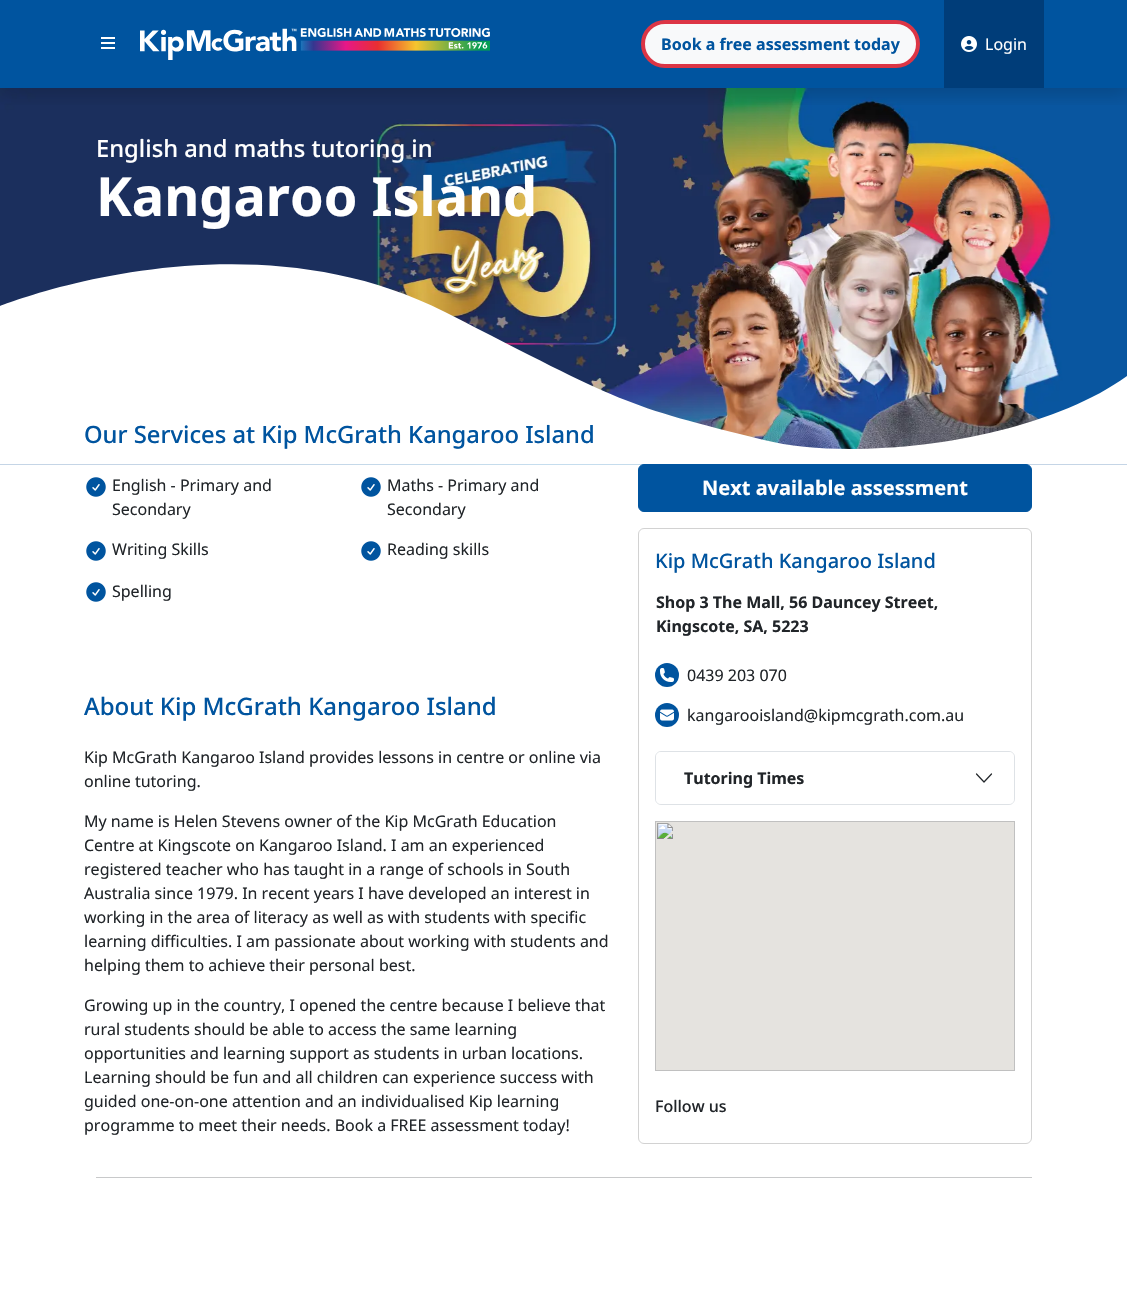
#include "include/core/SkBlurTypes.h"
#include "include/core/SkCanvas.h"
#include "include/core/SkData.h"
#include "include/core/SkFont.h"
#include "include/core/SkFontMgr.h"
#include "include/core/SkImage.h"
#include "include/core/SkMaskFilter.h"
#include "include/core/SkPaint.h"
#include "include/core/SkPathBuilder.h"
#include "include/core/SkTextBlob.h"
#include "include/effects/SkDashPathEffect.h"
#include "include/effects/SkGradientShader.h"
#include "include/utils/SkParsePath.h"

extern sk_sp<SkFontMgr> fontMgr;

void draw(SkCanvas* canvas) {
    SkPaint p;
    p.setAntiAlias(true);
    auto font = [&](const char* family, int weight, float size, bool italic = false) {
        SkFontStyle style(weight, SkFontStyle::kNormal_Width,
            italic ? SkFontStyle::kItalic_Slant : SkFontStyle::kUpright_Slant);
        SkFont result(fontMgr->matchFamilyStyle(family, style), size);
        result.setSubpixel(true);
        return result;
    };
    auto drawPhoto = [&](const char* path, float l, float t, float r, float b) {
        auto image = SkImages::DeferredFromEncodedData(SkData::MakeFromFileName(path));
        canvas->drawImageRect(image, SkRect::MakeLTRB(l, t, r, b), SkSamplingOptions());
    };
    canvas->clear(0xFF00549F);
    p.setColor(0xFFFFFFFF);
    canvas->drawRect(SkRect::MakeLTRB(0, 464, 1127, 1305), p);
    drawPhoto("media/3.png", 0, 88, 1127, 465);
    drawPhoto("media/4.png", 0, 88, 1127, 449);
    canvas->save();
    canvas->clipRect(SkRect::MakeLTRB(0, 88, 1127, 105));
    p.setColor(0x26000000);
    p.setMaskFilter(SkMaskFilter::MakeBlur(kNormal_SkBlurStyle, 8));
    canvas->drawRect(SkRect::MakeLTRB(0, 8, 1127, 96), p);
    p.setMaskFilter(nullptr);
    canvas->restore();
    {
        const struct { float l, t, r, b; SkColor color; } items[] = {
            {101, 37, 115, 39, 0xFFFFFFFF},
            {101, 42, 115, 44, 0xFFFFFFFF},
            {101, 47, 115, 49, 0xFFFFFFFF},
        };
        for (auto [l, t, r, b, color] : items) {
            p.setColor(color);
            canvas->drawRect(SkRect::MakeLTRB(l, t, r, b), p);
        }
    }
    drawPhoto("media/1.png", 140, 28, 490, 60);
    p.setColor(0xFFF8F9FA);
    canvas->drawRoundRect(SkRect::MakeLTRB(643, 22, 918, 66), 22, 22, p);
    p.setStyle(SkPaint::kStroke_Style);
    p.setStrokeWidth(4);
    p.setColor(0xFFDC3545);
    canvas->drawRoundRect(SkRect::MakeLTRB(643, 22, 918, 66), 22, 22, p);
    auto font1 = font("Noto Sans", 700, 16);
    p.setStyle(SkPaint::kFill_Style);
    p.setColor(0xFF00549F);
    canvas->drawString("Book a free assessment today", 661, 50, font1, p);
    p.setColor(0xFF003D79);
    canvas->drawRect(SkRect::MakeLTRB(944, 0, 1044, 88), p);
    drawPhoto("media/2.png", 961, 36, 977, 52);
    auto font2 = font("Noto Sans", 400, 16);
    p.setColor(0xFFFFFFFF);
    canvas->drawString("Login", 985, 50, font2, p);
    auto font3 = font("Noto Sans", 500, 23.75f);
    canvas->drawString("English and maths tutoring in", 96, 157, font3, p);
    auto font4 = font("Noto Sans", 700, 54);
    canvas->drawString("Kangaroo Island", 96, 216, font4, p);
    canvas->drawPath(SkPathBuilder().moveTo(764, 440).cubicTo(622, 405, 625, 404, 445, 312).cubicTo(242, 208, 0, 306, 0, 306).lineTo(0, 464).lineTo(1127, 464).lineTo(1127, 376).cubicTo(1036, 442, 856, 463, 764, 440).close().detach(), p);
    p.setColor(0xFF00549F);
    canvas->drawString("Our Services at Kip McGrath Kangaroo Island", 84, 443, font3, p);
    drawPhoto("media/5.png", 86, 477, 106, 497);
    p.setColor(0xFF212529);
    canvas->drawString("English - Primary and", 112, 491, font2, p);
    canvas->drawString("Secondary", 112, 515, font2, p);
    drawPhoto("media/5.png", 361, 477, 381, 497);
    canvas->drawString("Maths - Primary and", 387, 491, font2, p);
    canvas->drawString("Secondary", 387, 515, font2, p);
    drawPhoto("media/5.png", 86, 541, 106, 561);
    canvas->drawString("Writing Skills", 112, 555, font2, p);
    drawPhoto("media/5.png", 361, 541, 381, 561);
    canvas->drawString("Reading skills", 387, 555, font2, p);
    drawPhoto("media/5.png", 86, 582, 106, 602);
    canvas->drawString("Spelling", 112, 597, font2, p);
    auto font5 = font("Noto Sans", 500, 24);
    p.setColor(0xFF00549F);
    canvas->drawString("About Kip McGrath Kangaroo Island", 84, 715, font5, p);
    p.setColor(0xFF212529);
    {
        const struct { const char* s; float x, y; } items[] = {
            {"Kip McGrath Kangaroo Island provides lessons in centre or online via", 84, 763},
            {"online tutoring.", 84, 787},
            {"My name is Helen Stevens owner of the Kip McGrath Education", 84, 827},
            {"Centre at Kingscote on Kangaroo Island. I am an experienced", 84, 851},
            {"registered teacher who has taught in a range of schools in South", 84, 875},
            {"Australia since 1979. In recent years I have developed an interest in", 84, 899},
            {"working in the area of literacy as well as with students with specific", 84, 923},
            {"learning difficulties. I am passionate about working with students and", 84, 947},
            {"helping them to achieve their personal best.", 84, 971},
            {"Growing up in the country, I opened the centre because I believe that", 84, 1011},
            {"rural students should be able to access the same learning", 84, 1035},
            {"opportunities and learning support as students in urban locations.", 84, 1059},
            {"Learning should be fun and all children can experience success with", 84, 1083},
            {"guided one-on-one attention and an individualised Kip learning", 84, 1107},
            {"programme to meet their needs. Book a FREE assessment today!", 84, 1131},
        };
        for (auto [s, x, y] : items) {
            canvas->drawString(s, x, y, font2, p);
        }
    }
    p.setColor(0xFF00549F);
    canvas->drawRoundRect(SkRect::MakeLTRB(638.5f, 464.5f, 1031.5f, 511.5f), 5.5f, 5.5f, p);
    p.setStyle(SkPaint::kStroke_Style);
    p.setStrokeWidth(1);
    canvas->drawRoundRect(SkRect::MakeLTRB(638.5f, 464.5f, 1031.5f, 511.5f), 5.5f, 5.5f, p);
    auto font6 = font("Noto Sans", 700, 20);
    p.setStyle(SkPaint::kFill_Style);
    p.setColor(0xFFFFFFFF);
    canvas->drawString("Next available assessment", 702, 495, font6, p);
    p.setStyle(SkPaint::kStroke_Style);
    p.setColor(0xFFD2D2D2);
    canvas->drawRoundRect(SkRect::MakeLTRB(638.5f, 528.5f, 1031.5f, 1143.5f), 5.5f, 5.5f, p);
    auto font7 = font("Noto Sans", 500, 20);
    p.setStyle(SkPaint::kFill_Style);
    p.setColor(0xFF00549F);
    canvas->drawString("Kip McGrath Kangaroo Island", 655, 568, font7, p);
    p.setColor(0xFF212529);
    canvas->drawString("Shop 3 The Mall, 56 Dauncey Street,", 656, 608, font1, p);
    canvas->drawString("Kingscote, SA, 5223", 656, 632, font1, p);
    p.setColor(0xFF00549F);
    canvas->drawCircle(667, 675, 12, p);
    drawPhoto("media/6.png", 660, 668, 674, 682);
    p.setColor(0xFF212529);
    canvas->drawString("0439 203 070", 687, 681, font2, p);
    p.setColor(0xFF00549F);
    canvas->drawCircle(667, 715, 12, p);
    drawPhoto("media/7.png", 660, 709, 674, 721);
    p.setColor(0xFF212529);
    canvas->drawString("kangarooisland@kipmcgrath.com.au", 687, 721, font2, p);
    p.setStyle(SkPaint::kStroke_Style);
    p.setColor(0xFFDEE2E6);
    canvas->drawRoundRect(SkRect::MakeLTRB(655.5f, 751.5f, 1014.5f, 804.5f), 5.5f, 5.5f, p);
    p.setStyle(SkPaint::kFill_Style);
    p.setColor(0xFFFFFFFF);
    canvas->drawRoundRect(SkRect::MakeLTRB(656, 752, 1014, 804), 5, 5, p);
    p.setColor(0xFF212529);
    canvas->drawString("Tutoring Times", 684, 784, font1, p);
    p.setStyle(SkPaint::kStroke_Style);
    p.setStrokeWidth(1.2f);
    p.setStrokeCap(SkPaint::kRound_Cap);
    p.setStrokeJoin(SkPaint::kRound_Join);
    canvas->drawPath(SkPathBuilder().moveTo(976.5f, 774).lineTo(984, 782).lineTo(991.5f, 774).detach(), p);
    drawPhoto("media/8.png", 655, 821, 1015, 1071);
    auto font8 = font("Noto Sans", 500, 16);
    p.setStyle(SkPaint::kFill_Style);
    canvas->drawString("Follow us", 655, 1112, font8, p);
    p.setColor(0xFFC8C9CA);
    canvas->drawRect(SkRect::MakeLTRB(96, 1177, 1032, 1178), p);
}
